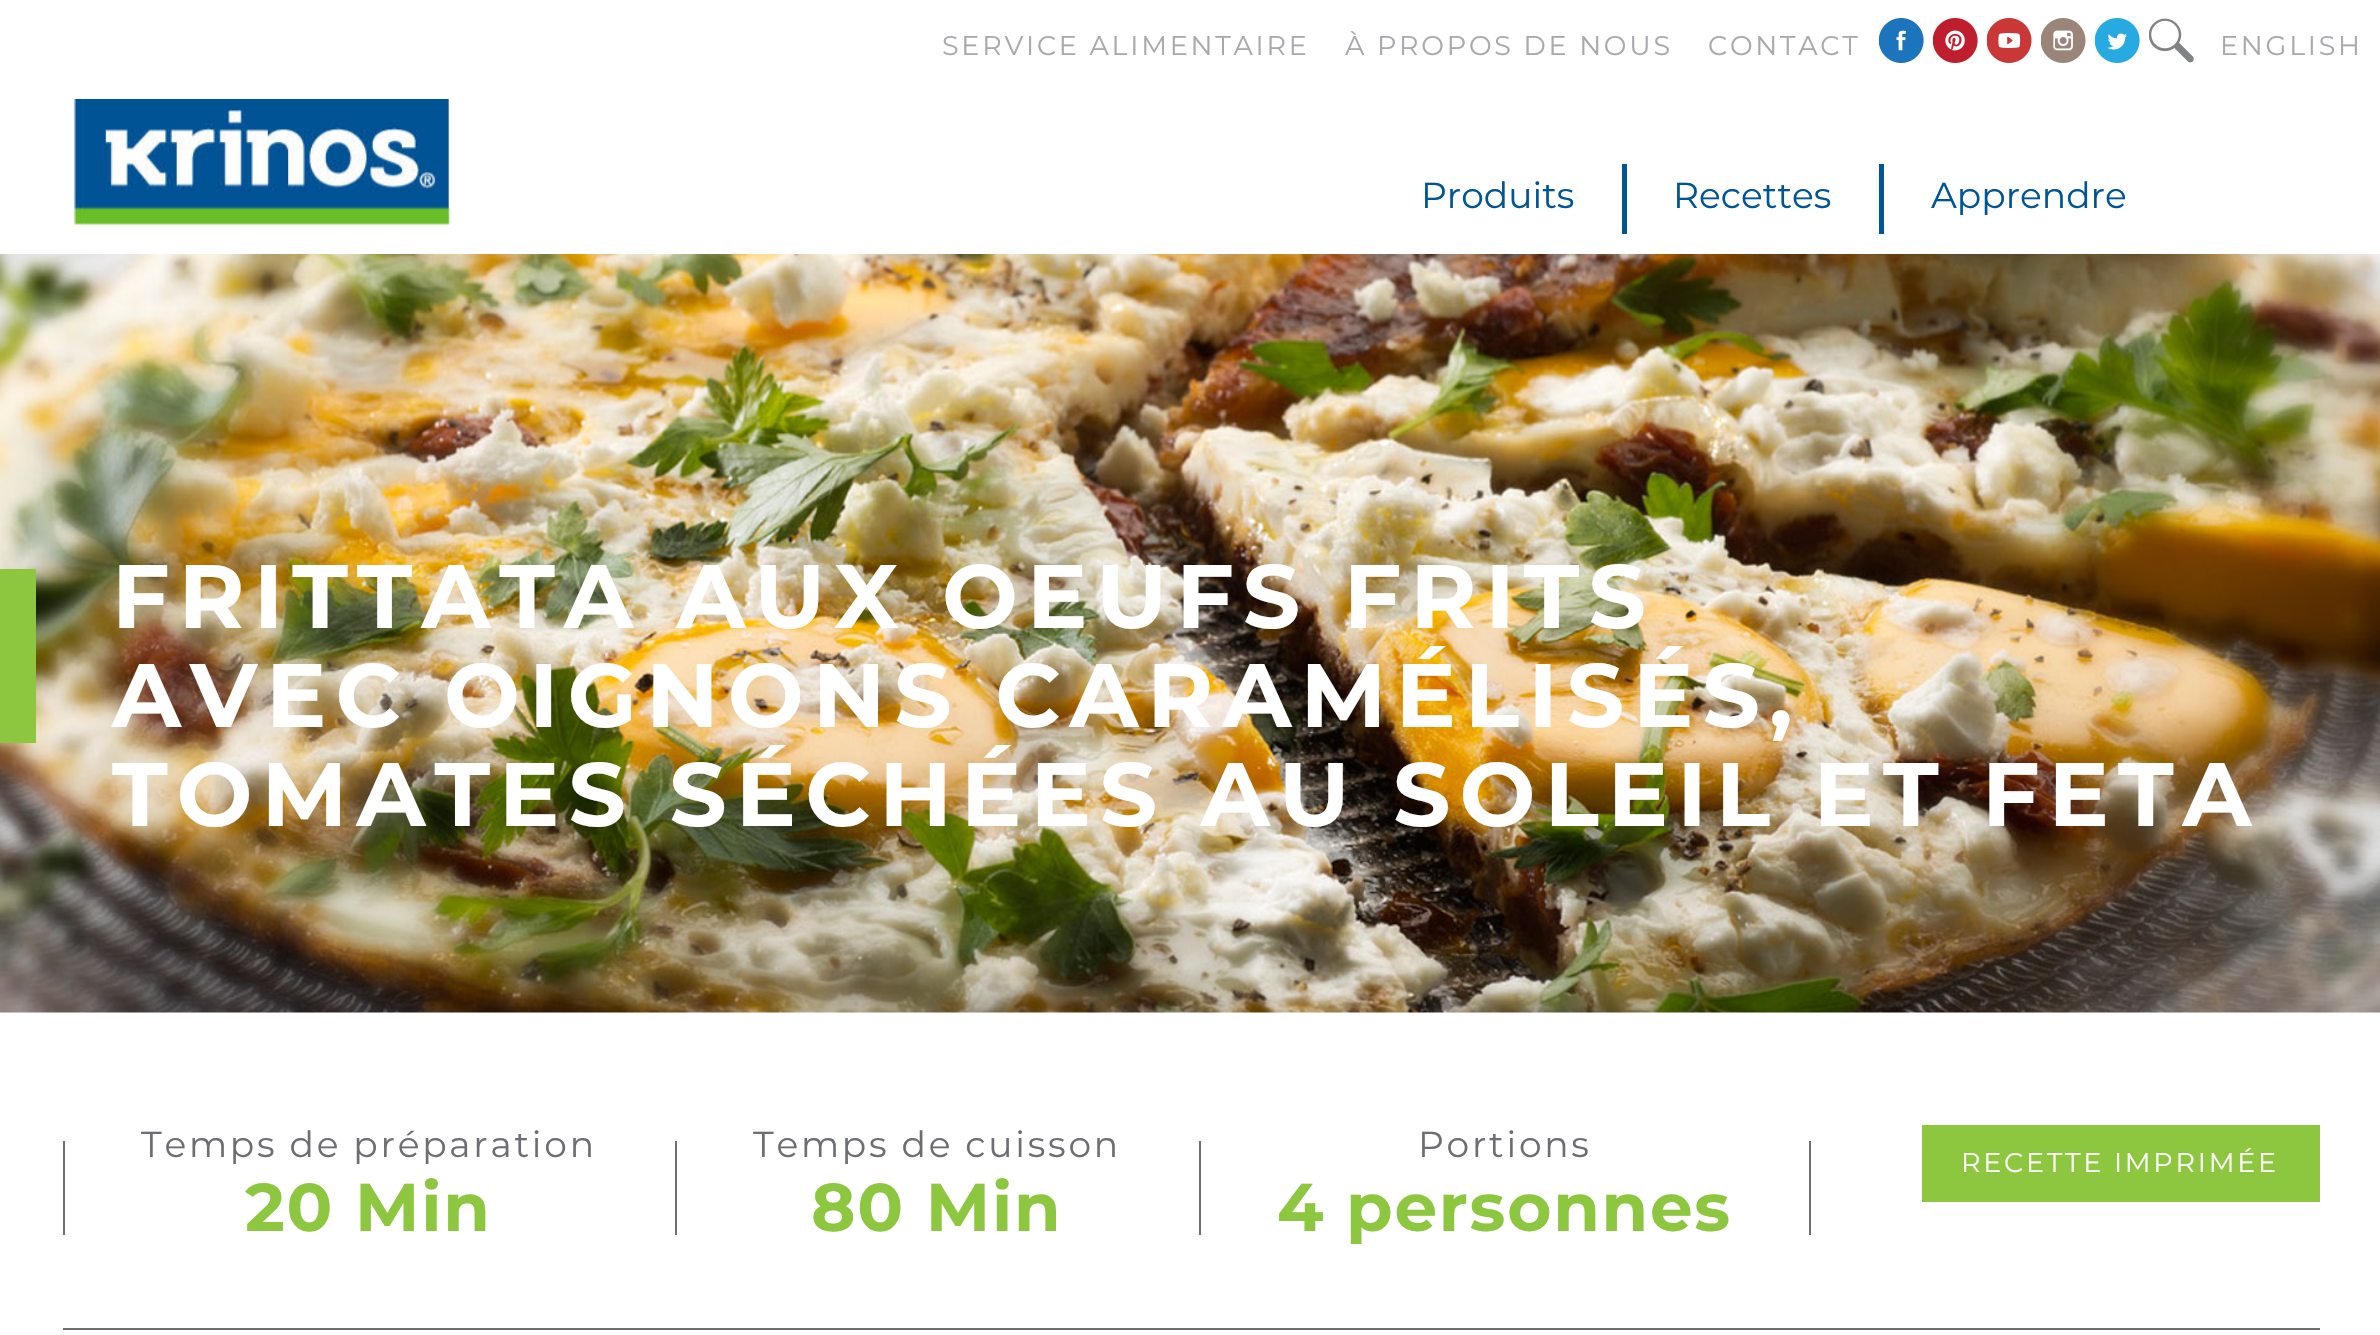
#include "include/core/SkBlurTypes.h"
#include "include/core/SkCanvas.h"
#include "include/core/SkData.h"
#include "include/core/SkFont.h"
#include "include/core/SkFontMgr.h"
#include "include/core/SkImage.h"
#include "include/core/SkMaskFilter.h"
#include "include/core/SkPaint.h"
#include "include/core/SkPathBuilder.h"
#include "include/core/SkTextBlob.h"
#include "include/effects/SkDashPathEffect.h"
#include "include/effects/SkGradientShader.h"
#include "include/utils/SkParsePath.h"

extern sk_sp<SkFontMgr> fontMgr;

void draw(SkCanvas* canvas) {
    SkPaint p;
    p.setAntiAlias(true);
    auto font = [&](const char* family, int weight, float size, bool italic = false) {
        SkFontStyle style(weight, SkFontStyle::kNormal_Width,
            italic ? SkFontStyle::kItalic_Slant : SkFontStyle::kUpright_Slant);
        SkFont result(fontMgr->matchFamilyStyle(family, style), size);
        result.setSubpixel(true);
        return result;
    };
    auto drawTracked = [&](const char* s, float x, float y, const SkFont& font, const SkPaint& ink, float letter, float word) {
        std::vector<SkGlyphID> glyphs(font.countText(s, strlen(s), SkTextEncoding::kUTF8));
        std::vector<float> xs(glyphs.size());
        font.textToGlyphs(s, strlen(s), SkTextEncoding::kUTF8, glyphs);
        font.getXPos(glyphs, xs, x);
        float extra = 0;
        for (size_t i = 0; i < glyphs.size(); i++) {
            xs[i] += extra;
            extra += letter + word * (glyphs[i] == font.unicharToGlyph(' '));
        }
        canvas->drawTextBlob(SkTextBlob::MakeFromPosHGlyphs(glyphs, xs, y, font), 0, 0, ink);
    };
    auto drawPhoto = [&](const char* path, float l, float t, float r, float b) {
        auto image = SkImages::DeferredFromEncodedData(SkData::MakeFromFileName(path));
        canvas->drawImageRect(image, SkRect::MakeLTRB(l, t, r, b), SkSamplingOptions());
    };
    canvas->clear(0xFFFFFFFF);
    auto font1 = font("Montserrat", 400, 27);
    p.setColor(0xFFA7A9AC);
    {
        const struct { const char* s; float x, y; } items[] = {
            {"SERVICE ALIMENTAIRE", 942, 55},
            {"À PROPOS DE NOUS", 1345, 55},
            {"CONTACT", 1708, 55},
        };
        for (auto [s, x, y] : items) {
            drawTracked(s, x, y, font1, p, 2.75f, 0);
        }
    }
    drawPhoto("media/1.png", 1879, 18, 1924, 63);
    drawPhoto("media/2.png", 1933, 18, 1978, 63);
    drawPhoto("media/3.png", 1987, 18, 2032, 63);
    drawPhoto("media/4.png", 2041, 18, 2086, 63);
    drawPhoto("media/5.png", 2095, 18, 2140, 63);
    drawPhoto("media/6.png", 2149, 18, 2194, 63);
    drawTracked("ENGLISH", 2220, 55, font1, p, 2.75f, 0);
    drawPhoto("media/7.png", 74, 99, 450, 225);
    auto font2 = font("Montserrat", 400, 36);
    p.setColor(0xFF005596);
    canvas->drawString("Produits", 1421, 208, font2, p);
    canvas->drawRect(SkRect::MakeLTRB(1622, 164, 1627, 234), p);
    canvas->drawString("Recettes", 1673, 208, font2, p);
    canvas->drawRect(SkRect::MakeLTRB(1879, 164, 1884, 234), p);
    canvas->drawString("Apprendre", 1931, 208, font2, p);
    drawPhoto("media/8.png", 0, 254, 2380, 1013);
    p.setColor(0xFF8DC63F);
    canvas->drawRect(SkRect::MakeLTRB(0, 569, 36, 743), p);
    auto font3 = font("Montserrat", 700, 90);
    p.setColor(0xFFFFFFFF);
    {
        const struct { const char* s; float x, y; } items[] = {
            {"FRITTATA AUX OEUFS FRITS", 112, 628},
            {"AVEC OIGNONS CARAMÉLISÉS,", 112, 727},
            {"TOMATES SÉCHÉES AU SOLEIL ET FETA", 112, 826},
        };
        for (auto [s, x, y] : items) {
            drawTracked(s, x, y, font3, p, 9, 0);
        }
    }
    p.setColor(0xFF6D6E71);
    canvas->drawRect(SkRect::MakeLTRB(63, 1141, 65, 1235), p);
    drawTracked("Temps de préparation", 141, 1157, font2, p, 2.75f, 0);
    auto font4 = font("Montserrat", 700, 67.5f);
    p.setColor(0xFF8DC63F);
    drawTracked("20 Min", 245, 1231, font4, p, 1.75f, 0);
    p.setColor(0xFF6D6E71);
    canvas->drawRect(SkRect::MakeLTRB(675, 1141, 677, 1235), p);
    drawTracked("Temps de cuisson", 753, 1157, font2, p, 2.75f, 0);
    p.setColor(0xFF8DC63F);
    drawTracked("80 Min", 811, 1231, font4, p, 1.75f, 0);
    p.setColor(0xFF6D6E71);
    canvas->drawRect(SkRect::MakeLTRB(1199, 1141, 1201, 1235), p);
    drawTracked("Portions", 1418, 1157, font2, p, 2.75f, 0);
    canvas->drawRect(SkRect::MakeLTRB(1809, 1141, 1811, 1235), p);
    p.setColor(0xFF8DC63F);
    drawTracked("4 personnes", 1277, 1231, font4, p, 1.75f, 0);
    canvas->drawRect(SkRect::MakeLTRB(1922, 1125, 2320, 1202), p);
    p.setColor(0xFFFFFFFF);
    drawTracked("RECETTE IMPRIMÉE", 1961, 1172, font1, p, 2.75f, 0);
    p.setColor(0xFF6D6E71);
    canvas->drawRect(SkRect::MakeLTRB(63, 1328, 2320, 1330), p);
}
